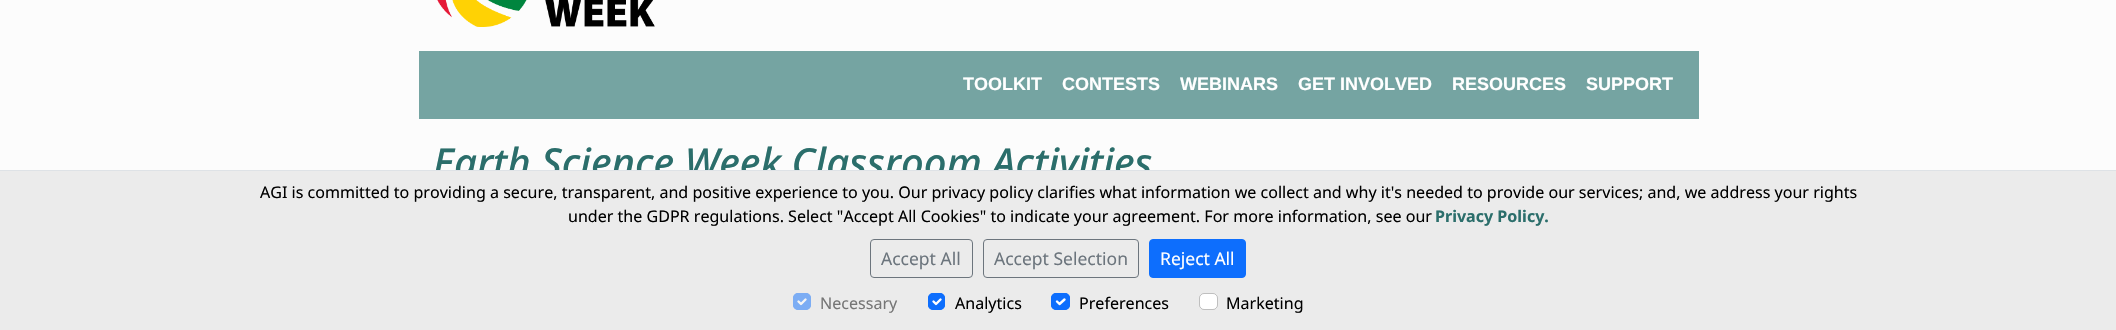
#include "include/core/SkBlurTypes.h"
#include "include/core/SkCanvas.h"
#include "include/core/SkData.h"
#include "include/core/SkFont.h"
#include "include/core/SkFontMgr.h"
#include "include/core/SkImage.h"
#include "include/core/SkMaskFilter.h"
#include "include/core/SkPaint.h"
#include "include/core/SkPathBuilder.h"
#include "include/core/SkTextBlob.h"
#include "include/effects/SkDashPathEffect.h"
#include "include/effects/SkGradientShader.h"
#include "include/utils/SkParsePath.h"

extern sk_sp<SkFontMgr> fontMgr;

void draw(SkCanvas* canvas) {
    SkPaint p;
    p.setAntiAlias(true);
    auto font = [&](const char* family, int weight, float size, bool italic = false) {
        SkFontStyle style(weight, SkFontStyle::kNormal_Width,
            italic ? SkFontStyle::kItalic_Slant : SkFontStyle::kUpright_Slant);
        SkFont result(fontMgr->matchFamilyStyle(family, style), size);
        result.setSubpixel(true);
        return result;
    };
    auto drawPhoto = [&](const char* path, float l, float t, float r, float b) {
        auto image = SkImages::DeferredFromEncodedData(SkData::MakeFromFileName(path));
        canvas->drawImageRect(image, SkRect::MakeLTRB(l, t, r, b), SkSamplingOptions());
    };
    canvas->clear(0xFFFCFCFC);
    drawPhoto("media/1.png", 437, 0, 655, 27);
    p.setColor(0xFF75A4A2);
    canvas->drawRect(SkRect::MakeLTRB(419, 51, 1699, 119), p);
    auto font1 = font("Liberation Sans", 700, 18);
    p.setColor(0xFFFFFFFF);
    {
        const struct { const char* s; float x, y; } items[] = {
            {"TOOLKIT", 963, 90},
            {"CONTESTS", 1062, 90},
            {"WEBINARS", 1180, 90},
            {"GET INVOLVED", 1298, 90},
            {"RESOURCES", 1452, 90},
            {"SUPPORT", 1586, 90},
        };
        for (auto [s, x, y] : items) {
            canvas->drawString(s, x, y, font1, p);
        }
    }
    auto font2 = font("Noto Sans", 500, 40, true);
    p.setColor(0xFF2B6E6B);
    canvas->drawString("Earth Science Week Classroom Activities", 433, 177, font2, p);
    p.setColor(0xFFEBEBEB);
    canvas->drawRect(SkRect::MakeLTRB(0, 171, 2116, 330), p);
    p.setColor(0xFFDEE2E6);
    canvas->drawRect(SkRect::MakeLTRB(0, 170, 2116, 171), p);
    auto font3 = font("Noto Sans", 400, 16.05f);
    p.setColor(0xFF000000);
    canvas->drawString("AGI is committed to providing a secure, transparent, and positive experience to you. Our privacy policy clarifies what information we collect and why it's needed to provide our services; and, we address your rights", 260, 198, font3, p);
    canvas->drawString("under the GDPR regulations. Select \"Accept All Cookies\" to indicate your agreement. For more information, see our", 568, 222, font3, p);
    auto font4 = font("Noto Sans", 700, 16.05f);
    p.setColor(0xFF2B6E6B);
    canvas->drawString("Privacy Policy.", 1435, 222, font4, p);
    p.setStyle(SkPaint::kStroke_Style);
    p.setStrokeWidth(1);
    p.setColor(0xFF6C757D);
    canvas->drawRoundRect(SkRect::MakeLTRB(870.5f, 239.5f, 972.5f, 277.5f), 3.5f, 3.5f, p);
    auto font5 = font("Noto Sans", 400, 17.5f);
    p.setStyle(SkPaint::kFill_Style);
    canvas->drawString("Accept All", 881, 265, font5, p);
    p.setStyle(SkPaint::kStroke_Style);
    canvas->drawRoundRect(SkRect::MakeLTRB(983.5f, 239.5f, 1138.5f, 277.5f), 3.5f, 3.5f, p);
    p.setStyle(SkPaint::kFill_Style);
    canvas->drawString("Accept Selection", 994, 265, font5, p);
    p.setColor(0xFF0D6EFD);
    canvas->drawRoundRect(SkRect::MakeLTRB(1149.5f, 239.5f, 1245.5f, 277.5f), 3.5f, 3.5f, p);
    p.setStyle(SkPaint::kStroke_Style);
    canvas->drawRoundRect(SkRect::MakeLTRB(1149.5f, 239.5f, 1245.5f, 277.5f), 3.5f, 3.5f, p);
    p.setStyle(SkPaint::kFill_Style);
    p.setColor(0xFFFFFFFF);
    canvas->drawString("Reject All", 1160, 265, font5, p);
    p.setColor(0xFF7CADF4);
    canvas->drawRoundRect(SkRect::MakeLTRB(793, 293, 811, 310), 5, 5, p);
    p.setStyle(SkPaint::kStroke_Style);
    p.setStrokeWidth(2.4f);
    p.setStrokeCap(SkPaint::kRound_Cap);
    p.setStrokeJoin(SkPaint::kRound_Join);
    p.setColor(0xFFF5F5F5);
    canvas->drawPath(SkPathBuilder().moveTo(798.5f, 301.5f).lineTo(801, 304).lineTo(805.5f, 299.5f).detach(), p);
    p.setStrokeWidth(1);
    p.setStrokeCap(SkPaint::kButt_Cap);
    p.setStrokeJoin(SkPaint::kMiter_Join);
    p.setColor(0xFF7CADF4);
    canvas->drawRoundRect(SkRect::MakeLTRB(793.5f, 293.5f, 810.5f, 309.5f), 4.5f, 4.5f, p);
    p.setStyle(SkPaint::kFill_Style);
    p.setColor(0xFF767676);
    canvas->drawString("Necessary", 820, 309, font3, p);
    p.setColor(0xFF0D6EFD);
    canvas->drawRoundRect(SkRect::MakeLTRB(928, 293, 945, 310), 5, 5, p);
    p.setStyle(SkPaint::kStroke_Style);
    p.setStrokeWidth(2.4f);
    p.setStrokeCap(SkPaint::kRound_Cap);
    p.setStrokeJoin(SkPaint::kRound_Join);
    p.setColor(0xFFFFFFFF);
    canvas->drawPath(SkPathBuilder().moveTo(933.5f, 301.5f).lineTo(936, 304).lineTo(940.5f, 299.5f).detach(), p);
    p.setStrokeWidth(1);
    p.setStrokeCap(SkPaint::kButt_Cap);
    p.setStrokeJoin(SkPaint::kMiter_Join);
    p.setColor(0xFF0D6EFD);
    canvas->drawRoundRect(SkRect::MakeLTRB(928.5f, 293.5f, 944.5f, 309.5f), 4.5f, 4.5f, p);
    p.setStyle(SkPaint::kFill_Style);
    p.setColor(0xFF000000);
    canvas->drawString("Analytics", 955, 309, font3, p);
    p.setColor(0xFF0D6EFD);
    canvas->drawRoundRect(SkRect::MakeLTRB(1051, 293, 1070, 310), 5, 5, p);
    p.setStyle(SkPaint::kStroke_Style);
    p.setStrokeWidth(2.4f);
    p.setStrokeCap(SkPaint::kRound_Cap);
    p.setStrokeJoin(SkPaint::kRound_Join);
    p.setColor(0xFFFFFFFF);
    canvas->drawPath(SkPathBuilder().moveTo(1057, 301.5f).lineTo(1059.5f, 304).lineTo(1064.5f, 299.5f).detach(), p);
    p.setStrokeWidth(1);
    p.setStrokeCap(SkPaint::kButt_Cap);
    p.setStrokeJoin(SkPaint::kMiter_Join);
    p.setColor(0xFF0D6EFD);
    canvas->drawRoundRect(SkRect::MakeLTRB(1051.5f, 293.5f, 1069.5f, 309.5f), 4.5f, 4.5f, p);
    p.setStyle(SkPaint::kFill_Style);
    p.setColor(0xFF000000);
    canvas->drawString("Preferences", 1079, 309, font3, p);
    p.setColor(0xFFFFFFFF);
    canvas->drawRoundRect(SkRect::MakeLTRB(1199, 293, 1218, 310), 5, 5, p);
    p.setStyle(SkPaint::kStroke_Style);
    p.setColor(0x40000000);
    canvas->drawRoundRect(SkRect::MakeLTRB(1199.5f, 293.5f, 1217.5f, 309.5f), 4.5f, 4.5f, p);
    p.setStyle(SkPaint::kFill_Style);
    p.setColor(0xFF000000);
    canvas->drawString("Marketing", 1226, 309, font3, p);
}
